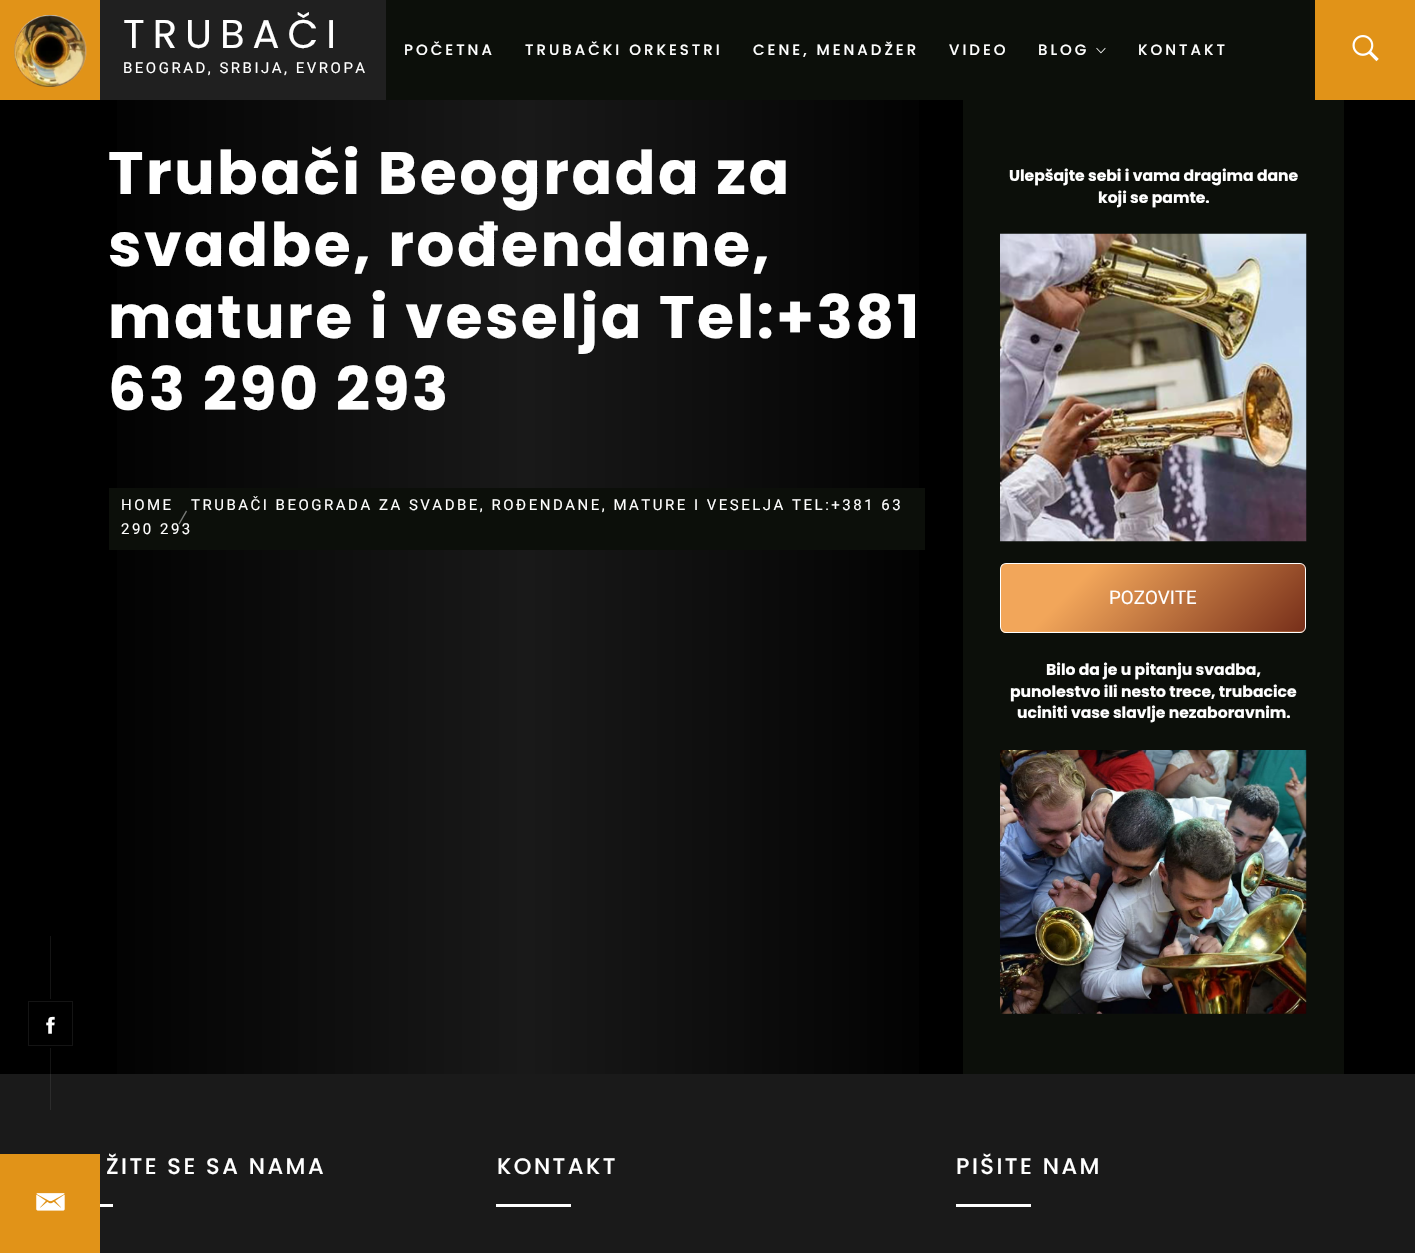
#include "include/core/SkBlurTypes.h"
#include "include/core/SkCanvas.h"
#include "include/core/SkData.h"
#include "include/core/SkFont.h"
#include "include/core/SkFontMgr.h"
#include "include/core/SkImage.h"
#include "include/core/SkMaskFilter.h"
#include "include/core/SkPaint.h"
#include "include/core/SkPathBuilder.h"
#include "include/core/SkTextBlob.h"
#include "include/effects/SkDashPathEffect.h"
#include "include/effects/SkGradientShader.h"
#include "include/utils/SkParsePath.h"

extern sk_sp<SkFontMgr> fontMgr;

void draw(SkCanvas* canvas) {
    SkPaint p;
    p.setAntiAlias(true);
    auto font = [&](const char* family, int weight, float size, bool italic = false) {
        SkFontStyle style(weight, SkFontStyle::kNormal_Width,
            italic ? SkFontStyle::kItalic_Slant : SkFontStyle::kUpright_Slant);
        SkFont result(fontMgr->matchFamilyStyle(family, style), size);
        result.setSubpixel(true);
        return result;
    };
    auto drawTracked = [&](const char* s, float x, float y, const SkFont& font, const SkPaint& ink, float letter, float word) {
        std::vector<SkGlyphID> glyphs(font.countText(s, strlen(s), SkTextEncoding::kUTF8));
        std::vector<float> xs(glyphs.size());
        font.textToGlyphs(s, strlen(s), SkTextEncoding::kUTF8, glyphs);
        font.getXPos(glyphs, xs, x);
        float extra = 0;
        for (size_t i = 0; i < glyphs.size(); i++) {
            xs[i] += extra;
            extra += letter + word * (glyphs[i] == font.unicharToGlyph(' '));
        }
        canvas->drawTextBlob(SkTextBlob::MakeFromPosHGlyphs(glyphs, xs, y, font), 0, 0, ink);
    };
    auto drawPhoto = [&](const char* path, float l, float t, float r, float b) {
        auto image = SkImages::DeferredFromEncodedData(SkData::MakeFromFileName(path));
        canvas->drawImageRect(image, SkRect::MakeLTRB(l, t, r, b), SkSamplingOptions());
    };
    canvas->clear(0xFF000000);
    {
        const struct { float l, t, r, b; SkColor color; } items[] = {
            {386, 0, 1315, 100, 0xFF0C0F0A},
            {100, 0, 386, 100, 0xFF202020},
            {0, 0, 100, 100, 0xFFE19318},
        };
        for (auto [l, t, r, b, color] : items) {
            p.setColor(color);
            canvas->drawRect(SkRect::MakeLTRB(l, t, r, b), p);
        }
    }
    drawPhoto("media/1.png", 14, 15, 87, 87);
    auto font1 = font("Poppins", 400, 40);
    p.setColor(0xFFFFFFFF);
    drawTracked("TRUBAČI", 123, 48, font1, p, 8, 0);
    auto font2 = font("Roboto", 400, 15);
    drawTracked("BEOGRAD, SRBIJA, EVROPA", 123, 73, font2, p, 2.5f, 0);
    auto font3 = font("Poppins", 500, 15);
    {
        const struct { const char* s; float x, y; } items[] = {
            {"POČETNA", 404, 55},
            {"TRUBAČKI ORKESTRI", 525, 55},
            {"CENE, MENADŽER", 753, 55},
            {"VIDEO", 949, 55},
            {"BLOG", 1038, 55},
        };
        for (auto [s, x, y] : items) {
            drawTracked(s, x, y, font3, p, 3, 0);
        }
    }
    drawPhoto("media/2.png", 1096, 47, 1106, 54);
    drawTracked("KONTAKT", 1138, 55, font3, p, 3, 0);
    p.setColor(0xFFE19318);
    canvas->drawRect(SkRect::MakeLTRB(1315, 0, 1415, 100), p);
    drawPhoto("media/3.png", 1352, 35, 1379, 62);
    p.setColor(0xFF141414);
    canvas->drawRect(SkRect::MakeLTRB(50, 936, 51, 999), p);
    p.setStyle(SkPaint::kStroke_Style);
    p.setStrokeWidth(1);
    canvas->drawRect(SkRect::MakeLTRB(28.5f, 1001.5f, 72.5f, 1045.5f), p);
    drawPhoto("media/4.png", 46, 1016, 55, 1034);
    p.setStyle(SkPaint::kFill_Style);
    p.setColor(0xFF1A1A1A);
    canvas->drawRect(SkRect::MakeLTRB(0, 1074, 1415, 1253), p);
    p.setColor(0xFFE19318);
    canvas->drawRect(SkRect::MakeLTRB(0, 1154, 100, 1253), p);
    drawPhoto("media/5.png", 36, 1193, 65, 1211);
    p.setColor(0xFF141414);
    canvas->drawRect(SkRect::MakeLTRB(50, 1048, 51, 1074), p);
    {
        const SkColor colors[] = {0xFF000000, 0xFF191919, 0xFF000000};
        const float stops[] = {0, 0.51f, 1};
        const SkPoint ends[] = {{71, 587}, {963, 587}};
        p.setShader(SkGradientShader::MakeLinear(ends, colors, stops, 3, SkTileMode::kClamp));
        p.setAlpha(255);
    }
    canvas->drawRect(SkRect::MakeLTRB(117, 100, 919, 1074), p);
    auto font4 = font("Poppins", 700, 60);
    p.setShader(nullptr);
    p.setColor(0xFFFFFFFF);
    {
        const struct { const char* s; float x, y; } items[] = {
            {"Trubači Beograda za", 108, 194},
            {"svadbe, rođendane,", 108, 266},
            {"mature i veselja Tel:+381", 108, 338},
            {"63 290 293", 108, 410},
        };
        for (auto [s, x, y] : items) {
            drawTracked(s, x, y, font4, p, 2.5f, 0);
        }
    }
    p.setColor(0xFF0C0F0A);
    canvas->drawRect(SkRect::MakeLTRB(109, 488, 925, 550), p);
    p.setColor(0xFFFFFFFF);
    drawTracked("TRUBAČI BEOGRADA ZA SVADBE, ROĐENDANE, MATURE I VESELJA TEL:+381 63", 191, 510, font2, p, 2.5f, 0);
    drawTracked("290 293", 121, 534, font2, p, 2.5f, 0);
    p.setColor(0xFF797B78);
    canvas->drawPath(SkPathBuilder().moveTo(186, 510.5f).lineTo(187, 511.5f).lineTo(179.5f, 524.5f).lineTo(178.5f, 523.5f).close().detach(), p);
    p.setColor(0xFFFFFFFF);
    drawTracked("HOME", 121, 510, font2, p, 2.5f, 0);
    p.setColor(0xFF0C0F0A);
    canvas->drawRect(SkRect::MakeLTRB(963, 100, 1344, 1074), p);
    auto font5 = font("Poppins", 700, 15.6f);
    p.setColor(0xFFFFFFFF);
    canvas->drawString("Ulepšajte sebi i vama dragima dane", 1009, 181, font5, p);
    canvas->drawString("koji se pamte.", 1098, 203, font5, p);
    drawPhoto("media/6.png", 1000, 233, 1307, 542);
    canvas->save();
    canvas->clipPath(SkPathBuilder().moveTo(1006, 563).lineTo(1300, 563).cubicTo(1303.5f, 563, 1306, 565.5f, 1306, 569).lineTo(1306, 627).cubicTo(1306, 630.5f, 1303.5f, 633, 1300, 633).lineTo(1006, 633).cubicTo(1002.5f, 633, 1000, 630.5f, 1000, 627).lineTo(1000, 569).cubicTo(1000, 565.5f, 1002.5f, 563, 1006, 563).close().detach(), true);
    {
        const SkColor colors[] = {0xFF772F1A, 0xFFF2A65A};
        const float stops[] = {0, 0.74f};
        const SkPoint ends[] = {{1246, 690}, {1060, 505}};
        p.setShader(SkGradientShader::MakeLinear(ends, colors, stops, 2, SkTileMode::kClamp));
        p.setAlpha(255);
    }
    canvas->drawRect(SkRect::MakeLTRB(1001, 564, 1305, 631), p);
    {
        const SkColor colors[] = {0xFF772F1A, 0xFFF2A65A};
        const float stops[] = {0, 0.74f};
        const SkPoint ends[] = {{1246, 758}, {1060, 572}};
        p.setShader(SkGradientShader::MakeLinear(ends, colors, stops, 2, SkTileMode::kClamp));
        p.setAlpha(255);
    }
    canvas->drawRect(SkRect::MakeLTRB(1001, 631, 1305, 633), p);
    canvas->restore();
    p.setStyle(SkPaint::kStroke_Style);
    p.setShader(nullptr);
    p.setColor(0xFFFFFFFF);
    canvas->drawRoundRect(SkRect::MakeLTRB(1000.5f, 563.5f, 1305.5f, 632.5f), 5.5f, 5.5f, p);
    auto font6 = font("Roboto", 400, 18.75f);
    p.setStyle(SkPaint::kFill_Style);
    canvas->drawString("POZOVITE", 1109, 604, font6, p);
    {
        const struct { const char* s; float x, y; } items[] = {
            {"Bilo da je u pitanju svadba,", 1046, 675},
            {"punolestvo ili nesto trece, trubacice", 1010, 697},
            {"uciniti vase slavlje nezaboravnim.", 1017, 718},
        };
        for (auto [s, x, y] : items) {
            canvas->drawString(s, x, y, font5, p);
        }
    }
    drawPhoto("media/7.png", 1000, 750, 1307, 1014);
    p.setColor(0xFF2C2C2C);
    canvas->drawRect(SkRect::MakeLTRB(50, 1074, 51, 1110), p);
    auto font7 = font("Poppins", 500, 22.5f);
    p.setColor(0xFFFFFFFF);
    drawTracked("ŽITE SE SA NAMA", 106, 1174, font7, p, 2.5f, 0);
    canvas->drawRect(SkRect::MakeLTRB(100, 1204, 113, 1207), p);
    drawTracked("KONTAKT", 497, 1174, font7, p, 2.5f, 0);
    canvas->drawRect(SkRect::MakeLTRB(496, 1204, 571, 1207), p);
    drawTracked("PIŠITE NAM", 956, 1174, font7, p, 2.5f, 0);
    canvas->drawRect(SkRect::MakeLTRB(956, 1204, 1031, 1207), p);
}
